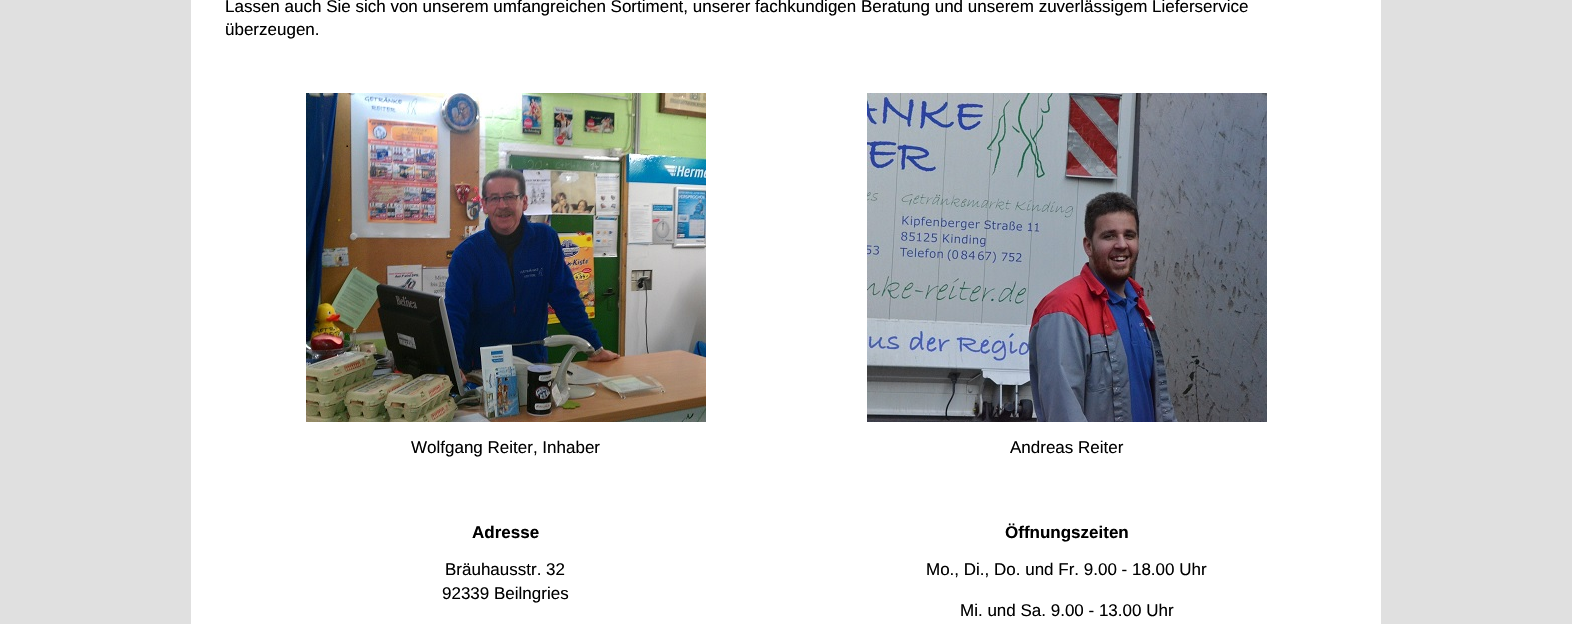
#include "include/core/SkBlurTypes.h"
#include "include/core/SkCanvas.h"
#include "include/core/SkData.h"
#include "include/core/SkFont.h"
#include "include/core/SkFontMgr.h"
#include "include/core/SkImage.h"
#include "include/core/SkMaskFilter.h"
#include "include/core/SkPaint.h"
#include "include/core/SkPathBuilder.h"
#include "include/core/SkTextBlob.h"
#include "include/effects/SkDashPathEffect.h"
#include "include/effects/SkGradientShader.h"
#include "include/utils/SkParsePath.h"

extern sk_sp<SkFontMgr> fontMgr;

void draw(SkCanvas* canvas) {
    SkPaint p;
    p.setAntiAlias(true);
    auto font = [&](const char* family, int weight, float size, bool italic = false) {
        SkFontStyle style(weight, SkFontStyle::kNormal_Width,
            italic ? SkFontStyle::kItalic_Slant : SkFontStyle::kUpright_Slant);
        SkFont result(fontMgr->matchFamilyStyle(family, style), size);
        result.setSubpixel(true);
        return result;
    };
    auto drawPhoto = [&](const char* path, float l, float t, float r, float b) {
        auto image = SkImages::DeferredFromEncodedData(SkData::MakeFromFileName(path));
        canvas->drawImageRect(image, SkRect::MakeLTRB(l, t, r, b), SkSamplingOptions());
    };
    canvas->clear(0xFFE0E0E0);
    p.setColor(0xFFFFFFFF);
    canvas->drawRect(SkRect::MakeLTRB(191, 0, 1381, 624), p);
    auto font1 = font("Liberation Sans", 400, 17);
    p.setColor(0xFF000000);
    canvas->drawString("Lassen auch Sie sich von unserem umfangreichen Sortiment, unserer fachkundigen Beratung und unserem zuverlässigem Lieferservice", 225, 12, font1, p);
    canvas->drawString("überzeugen.", 225, 35, font1, p);
    drawPhoto("media/1.png", 306, 93, 706, 422);
    canvas->drawString("Wolfgang Reiter, Inhaber", 411, 453, font1, p);
    drawPhoto("media/2.png", 867, 93, 1267, 422);
    canvas->drawString("Andreas Reiter", 1010, 453, font1, p);
    auto font2 = font("Liberation Sans", 700, 17);
    canvas->drawString("Adresse", 472, 538, font2, p);
    canvas->drawString("Bräuhausstr. 32", 445, 575, font1, p);
    canvas->drawString("92339 Beilngries", 442, 599, font1, p);
    canvas->drawString("Öffnungszeiten", 1005, 538, font2, p);
    canvas->drawString("Mo., Di., Do. und Fr. 9.00 - 18.00 Uhr", 926, 575, font1, p);
    canvas->drawString("Mi. und Sa. 9.00 - 13.00 Uhr", 960, 616, font1, p);
}
